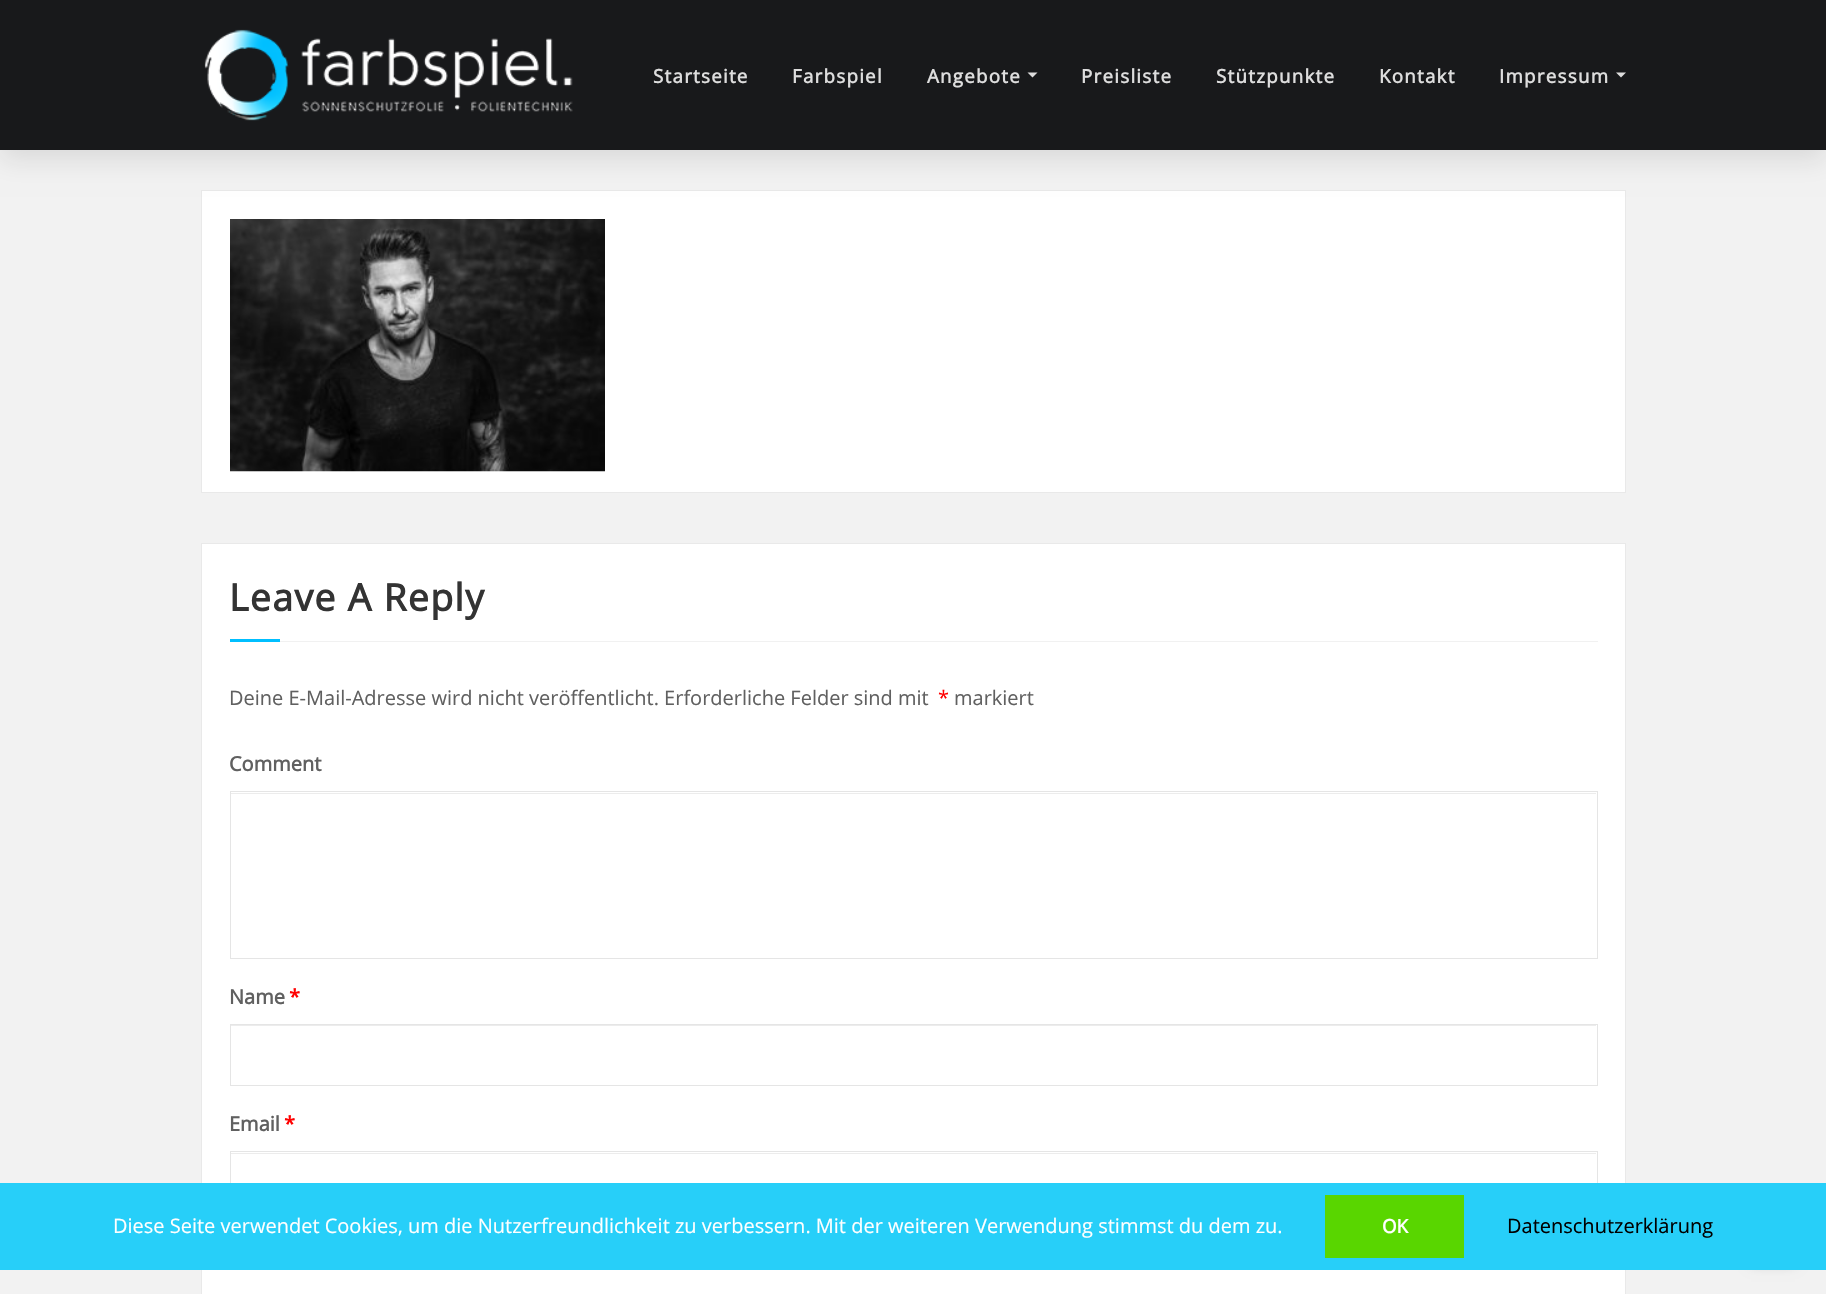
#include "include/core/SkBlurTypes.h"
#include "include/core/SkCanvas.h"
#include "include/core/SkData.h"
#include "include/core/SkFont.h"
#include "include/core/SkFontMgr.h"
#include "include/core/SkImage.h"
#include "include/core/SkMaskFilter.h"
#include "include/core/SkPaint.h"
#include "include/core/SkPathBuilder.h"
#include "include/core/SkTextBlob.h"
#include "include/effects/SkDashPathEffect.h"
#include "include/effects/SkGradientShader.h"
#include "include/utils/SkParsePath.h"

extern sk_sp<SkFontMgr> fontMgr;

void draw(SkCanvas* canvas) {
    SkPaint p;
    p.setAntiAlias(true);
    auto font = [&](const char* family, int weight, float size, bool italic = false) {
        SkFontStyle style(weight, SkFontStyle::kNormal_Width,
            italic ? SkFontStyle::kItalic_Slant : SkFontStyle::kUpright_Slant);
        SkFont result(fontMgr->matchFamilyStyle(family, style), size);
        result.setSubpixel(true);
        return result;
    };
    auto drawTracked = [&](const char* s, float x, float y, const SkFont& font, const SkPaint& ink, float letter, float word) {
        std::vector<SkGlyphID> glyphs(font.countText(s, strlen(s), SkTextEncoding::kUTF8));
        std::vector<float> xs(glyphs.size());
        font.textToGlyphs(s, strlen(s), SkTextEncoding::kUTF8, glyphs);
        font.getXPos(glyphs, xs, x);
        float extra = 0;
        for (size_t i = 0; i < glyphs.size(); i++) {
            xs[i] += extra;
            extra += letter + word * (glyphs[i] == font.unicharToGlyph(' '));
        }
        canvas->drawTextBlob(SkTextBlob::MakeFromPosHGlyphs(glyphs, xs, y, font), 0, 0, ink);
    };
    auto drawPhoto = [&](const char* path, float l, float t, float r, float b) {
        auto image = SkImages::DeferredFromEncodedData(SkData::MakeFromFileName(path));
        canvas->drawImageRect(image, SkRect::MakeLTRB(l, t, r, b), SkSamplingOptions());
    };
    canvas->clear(0xFFF2F2F2);
    p.setColor(0xFFFFFFFF);
    canvas->drawRect(SkRect::MakeLTRB(201.5f, 190.5f, 1625.5f, 492.5f), p);
    p.setStyle(SkPaint::kStroke_Style);
    p.setStrokeWidth(1);
    p.setColor(0xFFE9E9E9);
    canvas->drawRect(SkRect::MakeLTRB(201.5f, 190.5f, 1625.5f, 492.5f), p);
    p.setStyle(SkPaint::kFill_Style);
    p.setColor(0x1A000000);
    p.setMaskFilter(SkMaskFilter::MakeBlur(kNormal_SkBlurStyle, 12.5f));
    canvas->drawRect(SkRect::MakeLTRB(0, 10, 1826, 160), p);
    p.setMaskFilter(nullptr);
    p.setColor(0xFF18191B);
    canvas->drawRect(SkRect::MakeLTRB(0, 0, 1826, 150), p);
    drawPhoto("media/1.png", 204, 29, 573, 121);
    auto font1 = font("Open Sans", 700, 18.75f);
    p.setColor(0xFFDDDDDD);
    {
        const struct { const char* s; float x, y; } items[] = {
            {"Startseite", 653, 83},
            {"Farbspiel", 792, 83},
            {"Angebote", 927, 83},
        };
        for (auto [s, x, y] : items) {
            drawTracked(s, x, y, font1, p, 1.25f, 0);
        }
    }
    canvas->drawPath(SkPathBuilder().moveTo(1027.5f, 72.5f).lineTo(1037.5f, 72.5f).lineTo(1032.5f, 77.5f).close().detach(), p);
    {
        const struct { const char* s; float x, y; } items[] = {
            {"Preisliste", 1081, 83},
            {"Stützpunkte", 1216, 83},
            {"Kontakt", 1379, 83},
            {"Impressum", 1499, 83},
        };
        for (auto [s, x, y] : items) {
            drawTracked(s, x, y, font1, p, 1.25f, 0);
        }
    }
    canvas->drawPath(SkPathBuilder().moveTo(1616, 72.5f).lineTo(1626, 72.5f).lineTo(1621, 77.5f).close().detach(), p);
    drawPhoto("media/2.png", 230, 219, 605, 472);
    p.setColor(0xFFFFFFFF);
    canvas->drawRect(SkRect::MakeLTRB(201.5f, 543.5f, 1625.5f, 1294.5f), p);
    p.setStyle(SkPaint::kStroke_Style);
    p.setColor(0xFFE9E9E9);
    canvas->drawRect(SkRect::MakeLTRB(201.5f, 543.5f, 1625.5f, 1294.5f), p);
    p.setStyle(SkPaint::kFill_Style);
    p.setColor(0xFFF1F1F1);
    canvas->drawRect(SkRect::MakeLTRB(280, 641, 1598, 642), p);
    auto font2 = font("Open Sans", 700, 37.5f);
    p.setColor(0xFF333333);
    drawTracked("Leave A Reply", 229, 611, font2, p, 1.25f, 0);
    p.setColor(0xFF00BFFF);
    canvas->drawRect(SkRect::MakeLTRB(230, 639, 280, 642), p);
    auto font3 = font("Open Sans", 400, 20);
    p.setColor(0xFF606060);
    canvas->drawString("Deine E-Mail-Adresse wird nicht veröffentlicht. Erforderliche Felder sind mit", 229, 705, font3, p);
    p.setColor(0xFFFF0000);
    canvas->drawString("*", 938, 705, font3, p);
    p.setColor(0xFF606060);
    canvas->drawString("markiert", 954, 705, font3, p);
    auto font4 = font("Open Sans", 700, 20);
    canvas->drawString("Comment", 229, 771, font4, p);
    p.setColor(0xFFECECEC);
    canvas->drawRect(SkRect::MakeLTRB(231, 793, 1596, 794), p);
    p.setStyle(SkPaint::kStroke_Style);
    p.setColor(0xFFE5E5E5);
    canvas->drawRect(SkRect::MakeLTRB(230.5f, 791.5f, 1597.5f, 958.5f), p);
    p.setStyle(SkPaint::kFill_Style);
    p.setColor(0xFF606060);
    canvas->drawString("Name", 229, 1004, font4, p);
    p.setColor(0xFFFF0000);
    canvas->drawString("*", 289, 1004, font4, p);
    p.setColor(0xFFECECEC);
    canvas->drawRect(SkRect::MakeLTRB(231, 1025, 1596, 1026), p);
    p.setStyle(SkPaint::kStroke_Style);
    p.setColor(0xFFE5E5E5);
    canvas->drawRect(SkRect::MakeLTRB(230.5f, 1024.5f, 1597.5f, 1085.5f), p);
    p.setStyle(SkPaint::kFill_Style);
    p.setColor(0xFF606060);
    canvas->drawString("Email", 229, 1131, font4, p);
    p.setColor(0xFFFF0000);
    canvas->drawString("*", 284, 1131, font4, p);
    p.setColor(0xFFECECEC);
    canvas->drawRect(SkRect::MakeLTRB(231, 1153, 1596, 1154), p);
    p.setStyle(SkPaint::kStroke_Style);
    p.setColor(0xFFE5E5E5);
    canvas->drawRect(SkRect::MakeLTRB(230.5f, 1151.5f, 1597.5f, 1213.5f), p);
    p.setStyle(SkPaint::kFill_Style);
    p.setColor(0x33000000);
    p.setMaskFilter(SkMaskFilter::MakeBlur(kNormal_SkBlurStyle, 6));
    canvas->drawRect(SkRect::MakeLTRB(1751, 1220, 1795, 1264), p);
    p.setMaskFilter(nullptr);
    p.setColor(0xFF27CFF9);
    canvas->drawRect(SkRect::MakeLTRB(0, 1183, 1826, 1270), p);
    p.setColor(0xFFFFFFFF);
    canvas->drawString("Diese Seite verwendet Cookies, um die Nutzerfreundlichkeit zu verbessern. Mit der weiteren Verwendung stimmst du dem zu.", 113, 1233, font3, p);
    p.setColor(0xFF59D600);
    canvas->drawRect(SkRect::MakeLTRB(1325, 1195, 1464, 1258), p);
    p.setColor(0xFFFFFFFF);
    canvas->drawString("OK", 1382, 1233, font1, p);
    p.setColor(0xFF000000);
    canvas->drawString("Datenschutzerklärung", 1507, 1233, font3, p);
}
